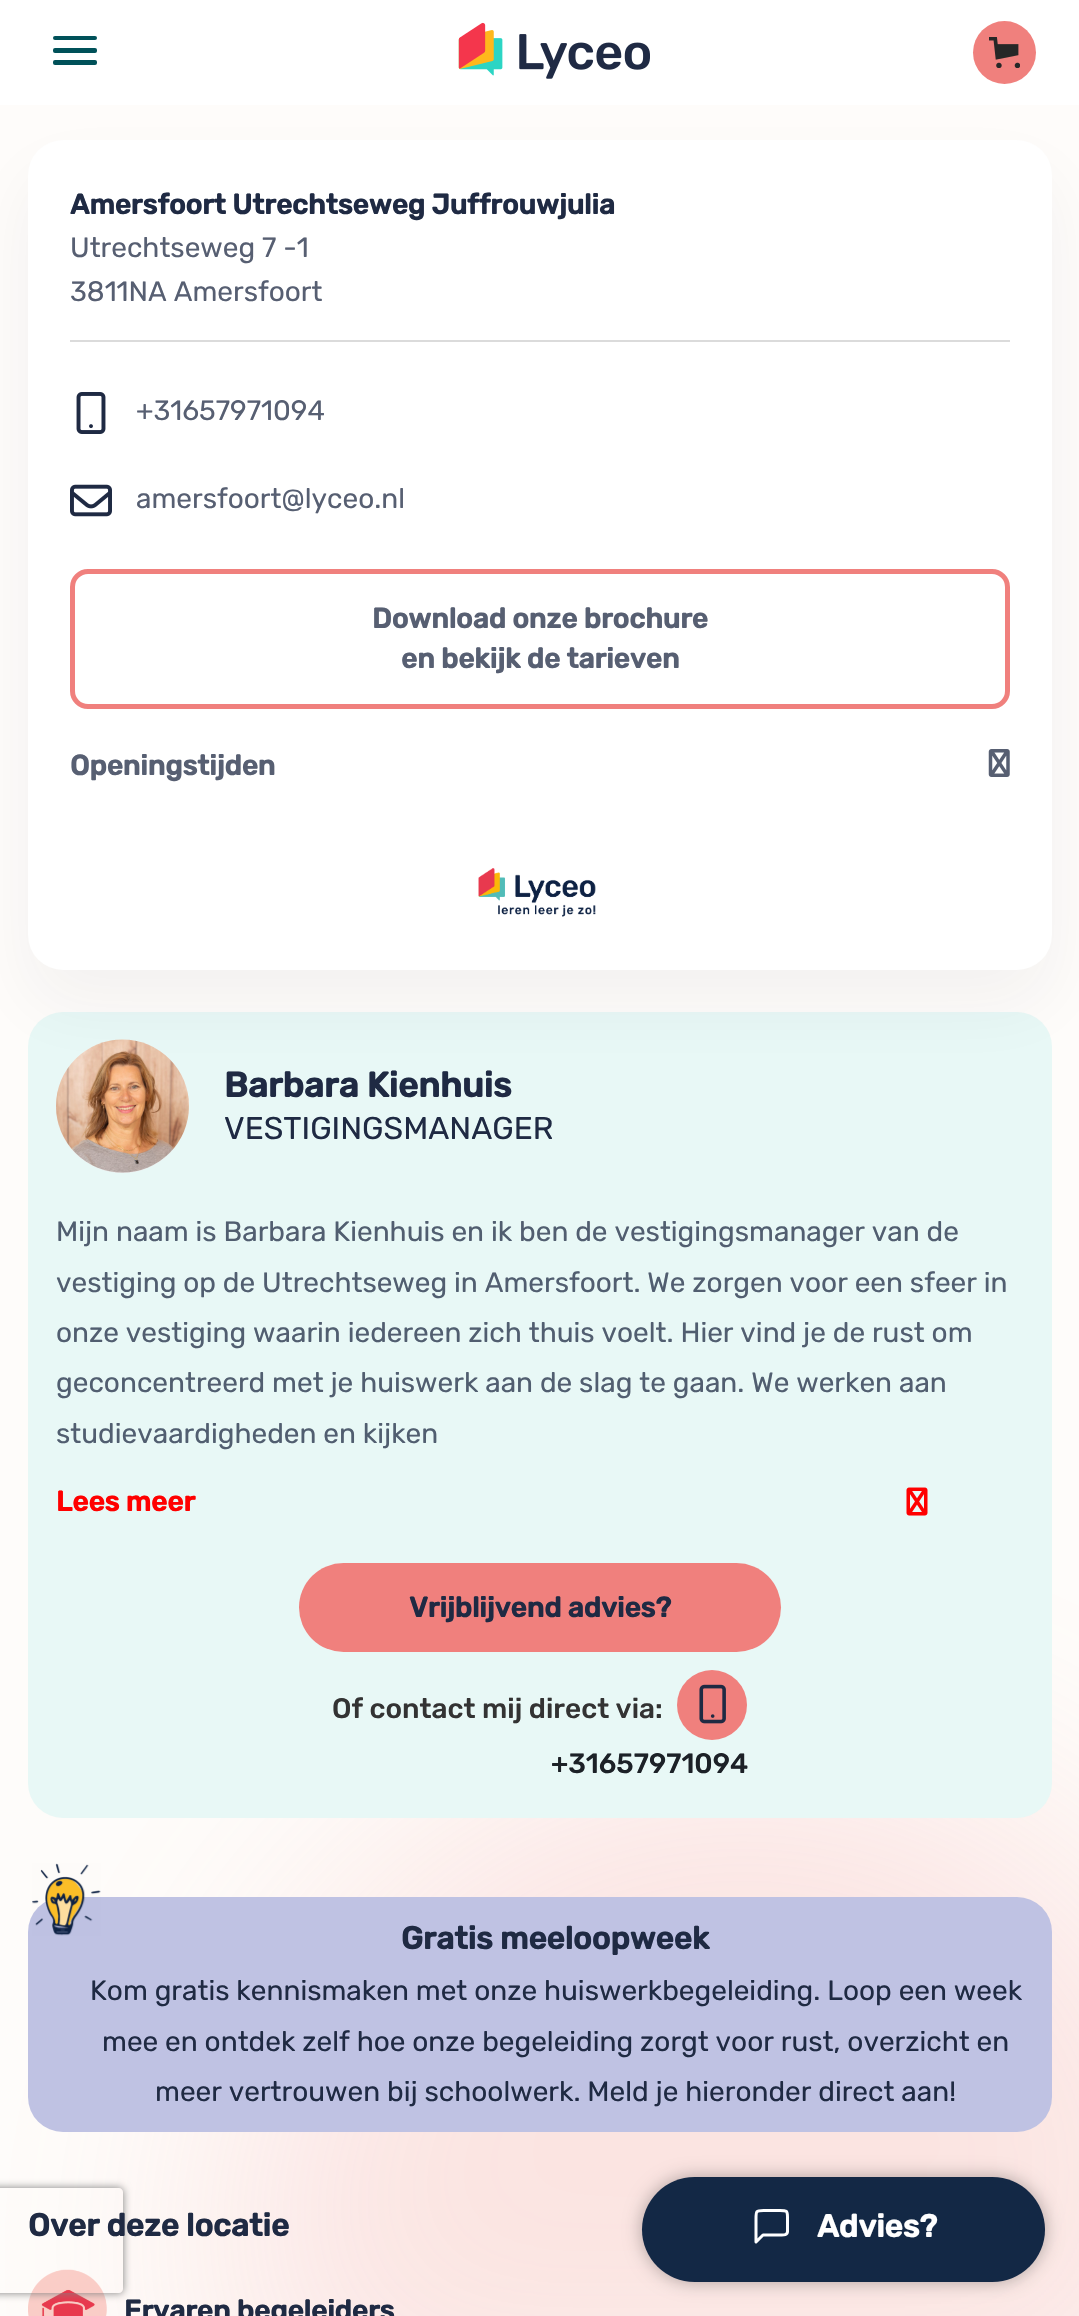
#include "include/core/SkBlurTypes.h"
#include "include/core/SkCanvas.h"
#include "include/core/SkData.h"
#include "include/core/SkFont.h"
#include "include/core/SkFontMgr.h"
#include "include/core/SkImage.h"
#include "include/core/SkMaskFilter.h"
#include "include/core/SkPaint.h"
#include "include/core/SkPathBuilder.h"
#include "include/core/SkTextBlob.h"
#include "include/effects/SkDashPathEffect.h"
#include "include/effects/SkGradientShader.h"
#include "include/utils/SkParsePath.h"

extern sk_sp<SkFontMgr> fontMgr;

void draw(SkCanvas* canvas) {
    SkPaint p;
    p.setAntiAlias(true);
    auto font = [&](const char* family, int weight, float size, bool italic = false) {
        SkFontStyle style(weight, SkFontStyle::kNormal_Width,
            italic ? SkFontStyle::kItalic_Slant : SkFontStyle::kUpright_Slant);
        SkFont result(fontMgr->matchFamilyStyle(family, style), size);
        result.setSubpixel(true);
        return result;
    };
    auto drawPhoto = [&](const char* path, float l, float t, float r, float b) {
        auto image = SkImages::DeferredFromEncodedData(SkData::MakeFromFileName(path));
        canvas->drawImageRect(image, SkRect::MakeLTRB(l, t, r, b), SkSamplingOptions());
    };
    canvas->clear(0xFFFEFCFA);
    p.setColor(0x33F0837F);
    p.setMaskFilter(SkMaskFilter::MakeBlur(kNormal_SkBlurStyle, 175));
    canvas->drawRoundRect(SkRect::MakeLTRB(231, 1757, 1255, 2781), 512, 512, p);
    p.setMaskFilter(nullptr);
    p.setColor(0xFFE8F8F6);
    canvas->drawRoundRect(SkRect::MakeLTRB(28, 1012, 1052, 1818), 35, 35, p);
    p.setColor(0x0D1F2A43);
    p.setMaskFilter(SkMaskFilter::MakeBlur(kNormal_SkBlurStyle, 35));
    canvas->drawRoundRect(SkRect::MakeLTRB(28, 175, 1052, 1005), 35, 35, p);
    p.setMaskFilter(nullptr);
    p.setColor(0xFFFFFFFF);
    canvas->drawRect(SkRect::MakeLTRB(0, 0, 1079, 105), p);
    p.setColor(0xFF005159);
    canvas->drawRoundRect(SkRect::MakeLTRB(53, 60, 97, 65), 2, 2, p);
    canvas->drawRoundRect(SkRect::MakeLTRB(53, 48, 97, 53), 2, 2, p);
    canvas->drawRoundRect(SkRect::MakeLTRB(53, 36, 97, 40), 2, 2, p);
    drawPhoto("media/1.png", 458, 22, 650, 79);
    p.setColor(0xFFF0807D);
    canvas->drawCircle(1004.5f, 52.5f, 31.5f, p);
    drawPhoto("media/2.png", 989, 37, 1020, 68);
    p.setColor(0xFFFFFFFF);
    canvas->drawRoundRect(SkRect::MakeLTRB(28, 140, 1052, 970), 35, 35, p);
    p.setColor(0xFFDBDBDB);
    canvas->drawRect(SkRect::MakeLTRB(70, 340, 1010, 342), p);
    auto font1 = font("Rubik", 700, 28);
    p.setColor(0xFF1F2A43);
    canvas->drawString("Amersfoort Utrechtseweg Juffrouwjulia", 70, 214, font1, p);
    auto font2 = font("Rubik", 400, 28);
    p.setColor(0xFF575F72);
    canvas->drawString("Utrechtseweg 7 -1", 70, 257, font2, p);
    canvas->drawString("3811NA Amersfoort", 70, 301, font2, p);
    drawPhoto("media/3.png", 76, 392, 106, 434);
    canvas->drawString("+31657971094", 136, 420, font2, p);
    drawPhoto("media/4.png", 70, 484, 112, 517);
    canvas->drawString("amersfoort@lyceo.nl", 136, 508, font2, p);
    p.setStyle(SkPaint::kStroke_Style);
    p.setStrokeWidth(5);
    p.setColor(0xFFF0807D);
    canvas->drawRoundRect(SkRect::MakeLTRB(72.5f, 571.5f, 1007.5f, 706.5f), 15.5f, 15.5f, p);
    p.setStyle(SkPaint::kFill_Style);
    p.setColor(0xFF575F72);
    {
        const struct { const char* s; float x, y; } items[] = {
            {"Download onze brochure", 372, 628},
            {"en bekijk de tarieven", 401, 668},
            {"Openingstijden", 70, 775},
        };
        for (auto [s, x, y] : items) {
            canvas->drawString(s, x, y, font1, p);
        }
    }
    drawPhoto("media/5.png", 988, 749, 1010, 777);
    drawPhoto("media/6.png", 478, 868, 596, 917);
    p.setColor(0xFFEDEDED);
    canvas->drawCircle(122.5f, 1106.5f, 66.5f, p);
    drawPhoto("media/7.png", 56, 1039, 189, 1173);
    auto font3 = font("Rubik", 700, 35);
    p.setColor(0xFF1F2A43);
    canvas->drawString("Barbara Kienhuis", 224, 1097, font3, p);
    auto font4 = font("Rubik", 400, 31.5f);
    canvas->drawString("VESTIGINGSMANAGER", 224, 1139, font4, p);
    p.setColor(0xFF515E70);
    {
        const struct { const char* s; float x, y; } items[] = {
            {"Mijn naam is Barbara Kienhuis en ik ben de vestigingsmanager van de", 56, 1241},
            {"vestiging op de Utrechtseweg in Amersfoort. We zorgen voor een sfeer in", 56, 1292},
            {"onze vestiging waarin iedereen zich thuis voelt. Hier vind je de rust om", 56, 1342},
            {"geconcentreerd met je huiswerk aan de slag te gaan. We werken aan", 56, 1392},
            {"studievaardigheden en kijken", 56, 1443},
        };
        for (auto [s, x, y] : items) {
            canvas->drawString(s, x, y, font2, p);
        }
    }
    p.setColor(0xFFFF0000);
    canvas->drawString("Lees meer", 56, 1511, font1, p);
    drawPhoto("media/8.png", 906, 1487, 928, 1516);
    p.setColor(0xFFF0807D);
    canvas->drawRoundRect(SkRect::MakeLTRB(299, 1563, 781, 1652), 44.5f, 44.5f, p);
    p.setColor(0xFF1F2A43);
    canvas->drawString("Vrijblijvend advies?", 409, 1617, font1, p);
    auto font5 = font("Rubik", 500, 28);
    p.setColor(0xFF333333);
    canvas->drawString("Of contact mij direct via:", 332, 1718, font5, p);
    p.setColor(0xFFF0807D);
    canvas->drawCircle(712, 1705, 35, p);
    drawPhoto("media/9.png", 699, 1684, 726, 1724);
    p.setColor(0xFF1C2127);
    canvas->drawString("+31657971094", 551, 1773, font5, p);
    p.setColor(0xFFBFC2E3);
    canvas->drawRoundRect(SkRect::MakeLTRB(28, 1897, 1052, 2132), 35, 35, p);
    drawPhoto("media/10.png", 32, 1863, 101, 1936);
    auto font6 = font("Rubik", 700, 31.5f);
    p.setColor(0xFF1F2A43);
    canvas->drawString("Gratis meeloopweek", 401, 1949, font6, p);
    {
        const struct { const char* s; float x, y; } items[] = {
            {"Kom gratis kennismaken met onze huiswerkbegeleiding. Loop een week", 90, 2000},
            {"mee en ontdek zelf hoe onze begeleiding zorgt voor rust, overzicht en", 102, 2051},
            {"meer vertrouwen bij schoolwerk. Meld je hieronder direct aan!", 155, 2101},
        };
        for (auto [s, x, y] : items) {
            canvas->drawString(s, x, y, font2, p);
        }
    }
    drawPhoto("media/11.png", 28, 2269, 107, 2316);
    canvas->save();
    canvas->clipPath(SkPathBuilder(SkPathFillType::kEvenOdd).moveTo(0, 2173).lineTo(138, 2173).lineTo(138, 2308).lineTo(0, 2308).close().moveTo(-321, 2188).lineTo(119, 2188).cubicTo(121, 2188, 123, 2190, 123, 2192).lineTo(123, 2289).cubicTo(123, 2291, 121, 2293, 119, 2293).lineTo(-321, 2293).cubicTo(-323, 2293, -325, 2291, -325, 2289).lineTo(-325, 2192).cubicTo(-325, 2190, -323, 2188, -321, 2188).close().detach(), true);
    p.setColor(0xFF808080);
    p.setMaskFilter(SkMaskFilter::MakeBlur(kNormal_SkBlurStyle, 4.5f));
    canvas->drawRoundRect(SkRect::MakeLTRB(-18, 2188, 123, 2293), 4, 4, p);
    p.setMaskFilter(nullptr);
    canvas->restore();
    p.setColor(0xFF1F2A43);
    canvas->drawString("Over deze locatie", 28, 2236, font6, p);
    canvas->drawString("Ervaren begeleiders", 124, 2320, font1, p);
    p.setColor(0x4D000000);
    p.setMaskFilter(SkMaskFilter::MakeBlur(kNormal_SkBlurStyle, 9));
    canvas->drawRoundRect(SkRect::MakeLTRB(642, 2177, 1045, 2282), 52.5f, 52.5f, p);
    p.setMaskFilter(nullptr);
    p.setColor(0xFF132845);
    canvas->drawRoundRect(SkRect::MakeLTRB(642, 2177, 1045, 2282), 52.5f, 52.5f, p);
    p.setStyle(SkPaint::kStroke_Style);
    p.setStrokeWidth(3);
    p.setStrokeCap(SkPaint::kRound_Cap);
    p.setStrokeJoin(SkPaint::kRound_Join);
    p.setColor(0xFFFFFFFF);
    canvas->drawPath(SkPathBuilder().moveTo(787.5f, 2231.5f).cubicTo(787.5f, 2235.5f, 783, 2235, 780.5f, 2235).lineTo(763, 2235).lineTo(756, 2242).lineTo(756, 2218.5f).cubicTo(756, 2211, 756, 2210.5f, 763.5f, 2210.5f).lineTo(780, 2210.5f).cubicTo(786.5f, 2210.5f, 787.5f, 2210.5f, 787.5f, 2217).close().detach(), p);
    p.setStyle(SkPaint::kFill_Style);
    canvas->drawString("Advies?", 817, 2237, font6, p);
}
